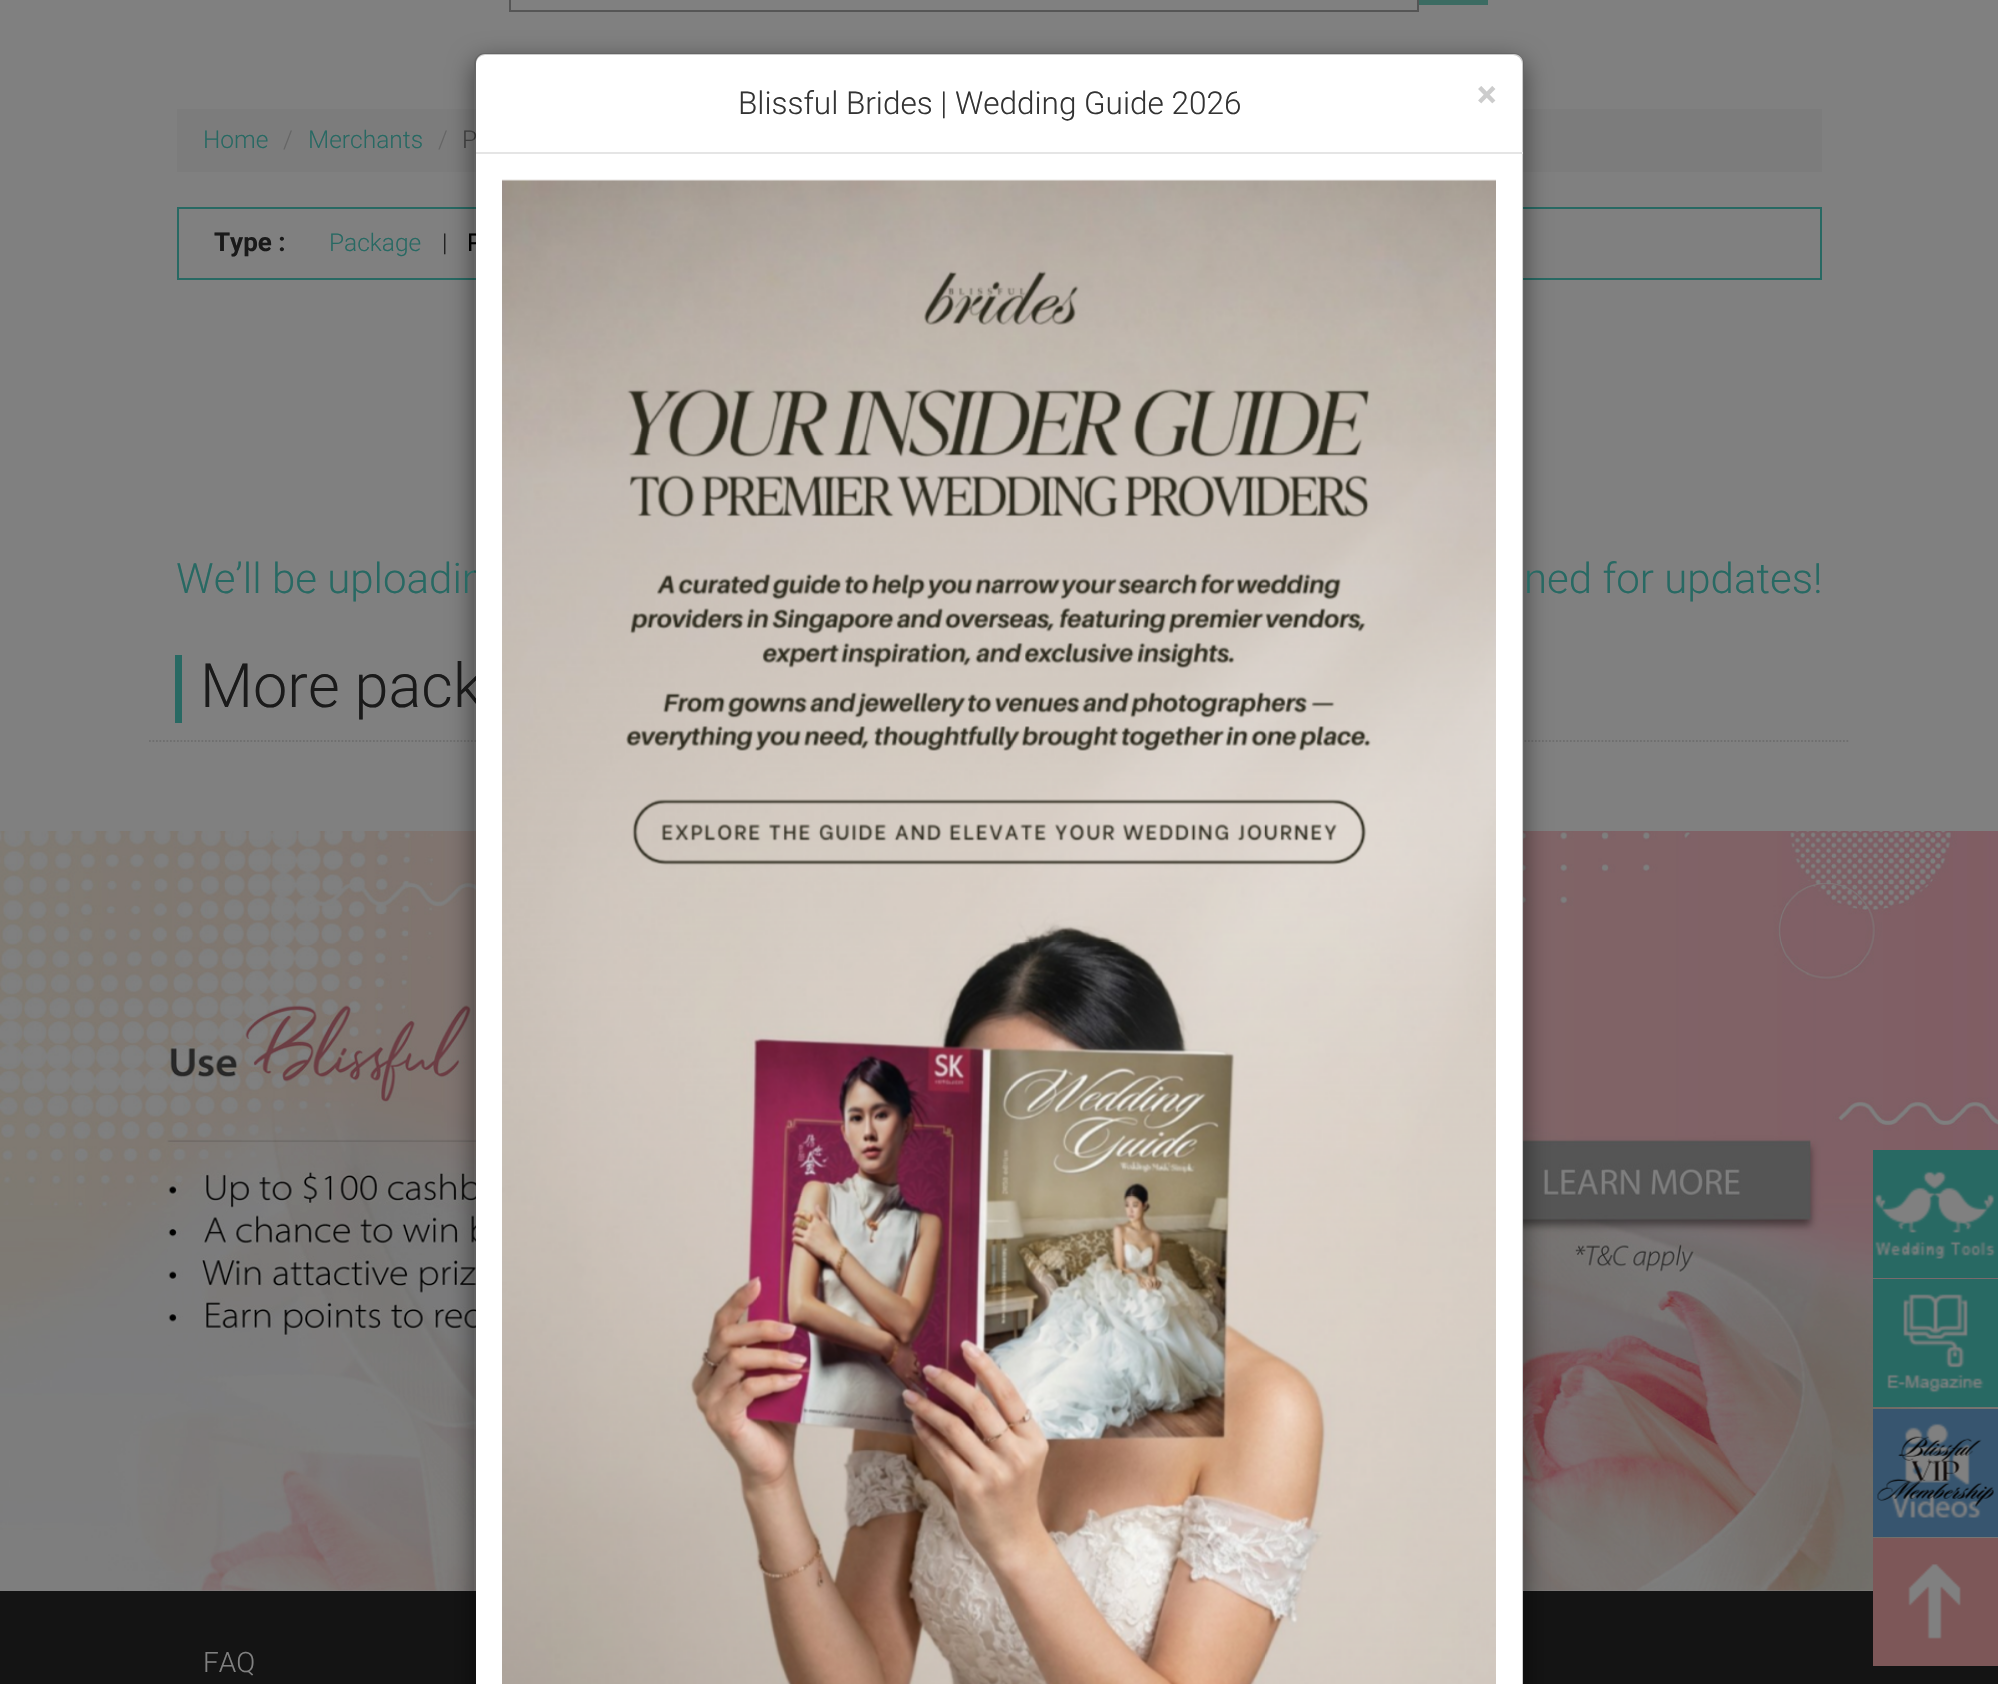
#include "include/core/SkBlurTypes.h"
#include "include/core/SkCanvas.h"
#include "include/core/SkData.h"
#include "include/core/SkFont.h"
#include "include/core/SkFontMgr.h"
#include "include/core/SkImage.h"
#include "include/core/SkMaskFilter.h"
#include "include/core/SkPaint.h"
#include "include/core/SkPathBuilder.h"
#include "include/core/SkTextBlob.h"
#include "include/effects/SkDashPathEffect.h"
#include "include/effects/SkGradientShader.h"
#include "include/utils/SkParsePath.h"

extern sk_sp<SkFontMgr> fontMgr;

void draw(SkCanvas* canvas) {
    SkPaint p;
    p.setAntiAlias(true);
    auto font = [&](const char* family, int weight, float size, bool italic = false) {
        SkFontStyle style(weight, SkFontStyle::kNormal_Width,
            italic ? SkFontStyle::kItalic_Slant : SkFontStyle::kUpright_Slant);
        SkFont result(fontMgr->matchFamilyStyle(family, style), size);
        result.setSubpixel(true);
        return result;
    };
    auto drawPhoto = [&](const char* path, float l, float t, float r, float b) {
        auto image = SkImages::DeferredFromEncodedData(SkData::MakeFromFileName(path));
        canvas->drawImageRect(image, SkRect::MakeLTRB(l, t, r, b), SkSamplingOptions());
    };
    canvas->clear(0xFF808080);
    p.setStyle(SkPaint::kStroke_Style);
    p.setStrokeWidth(2);
    p.setColor(0xFF555555);
    canvas->drawRect(SkRect::MakeLTRB(510, -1, 1418, 11), p);
    p.setStyle(SkPaint::kFill_Style);
    p.setColor(0xFF3B6B62);
    canvas->drawRect(SkRect::MakeLTRB(1419, 0, 1488, 5), p);
    p.setColor(0xFF7C7C7C);
    canvas->drawRect(SkRect::MakeLTRB(177, 109, 1822, 172), p);
    p.setStyle(SkPaint::kStroke_Style);
    p.setColor(0xFF286963);
    canvas->drawRect(SkRect::MakeLTRB(178, 208, 1821, 279), p);
    p.setStrokeWidth(1.8f);
    p.setColor(0xFF6F6F6F);
    p.setPathEffect(SkDashPathEffect::Make({{1.75f, 1.75f}}, 0));
    canvas->drawPath(SkPathBuilder().moveTo(149, 741).lineTo(1850, 741).detach(), p);
    p.setPathEffect(nullptr);
    drawPhoto("media/2.png", 0, 831, 1998, 1591);
    p.setStyle(SkPaint::kFill_Style);
    p.setColor(0xFF141414);
    canvas->drawRect(SkRect::MakeLTRB(0, 1591, 1998, 1684), p);
    canvas->save();
    canvas->clipPath(SkPathBuilder(SkPathFillType::kEvenOdd).moveTo(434, 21).lineTo(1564, 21).lineTo(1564, 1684).lineTo(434, 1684).close().moveTo(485, 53).lineTo(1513, 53).cubicTo(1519, 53, 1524, 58, 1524, 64).lineTo(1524, 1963).cubicTo(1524, 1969, 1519, 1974, 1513, 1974).lineTo(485, 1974).cubicTo(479, 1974, 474, 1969, 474, 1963).lineTo(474, 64).cubicTo(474, 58, 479, 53, 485, 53).close().detach(), true);
    p.setColor(0x80000000);
    p.setMaskFilter(SkMaskFilter::MakeBlur(kNormal_SkBlurStyle, 13));
    canvas->drawRoundRect(SkRect::MakeLTRB(474, 61, 1524, 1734), 11, 11, p);
    p.setMaskFilter(nullptr);
    canvas->restore();
    auto font1 = font("Roboto", 300, 24.5f);
    p.setColor(0xFF3C3C3C);
    canvas->drawString("P", 462, 148, font1, p);
    auto font2 = font("Roboto", 400, 24.5f);
    p.setColor(0xFF000000);
    canvas->drawString("P", 467, 251, font2, p);
    auto font3 = font("Roboto", 300, 42);
    p.setColor(0xFF286963);
    canvas->drawString("We’ll be uploadin", 176, 593, font3, p);
    auto font4 = font("Roboto", 300, 61.25f);
    p.setColor(0xFF1A1A1A);
    canvas->drawString("More pack", 200, 707, font4, p);
    p.setColor(0xFFFFFFFF);
    canvas->drawPath(SkPathBuilder().moveTo(485, 54).lineTo(1514, 54).cubicTo(1519, 54, 1523, 58, 1523, 63).lineTo(1523, 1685).lineTo(476, 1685).lineTo(476, 63).cubicTo(476, 58, 480, 54, 485, 54).close().detach(), p);
    p.setStyle(SkPaint::kStroke_Style);
    p.setStrokeWidth(2);
    p.setColor(0x33000000);
    canvas->drawRoundRect(SkRect::MakeLTRB(475, 54, 1523, 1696), 10, 10, p);
    p.setStyle(SkPaint::kFill_Style);
    p.setColor(0xFFE5E5E5);
    canvas->drawRect(SkRect::MakeLTRB(476, 152, 1523, 154), p);
    auto font5 = font("Roboto", 300, 31.5f);
    p.setColor(0xFF333333);
    canvas->drawString("Blissful Brides | Wedding Guide 2026", 738, 114, font5, p);
    auto font6 = font("Roboto", 700, 37);
    p.setColor(0xFFCCCCCC);
    canvas->drawString("×", 1477, 107, font6, p);
    drawPhoto("media/1.png", 502, 179, 1496, 1684);
    p.setColor(0xFF286963);
    canvas->drawString("Home", 203, 148, font1, p);
    p.setColor(0xFF666666);
    canvas->drawString("/", 283, 148, font1, p);
    p.setColor(0xFF286963);
    canvas->drawString("Merchants", 308, 148, font1, p);
    p.setColor(0xFF666666);
    canvas->drawString("/", 438, 148, font1, p);
    auto font7 = font("Roboto", 700, 26);
    p.setColor(0xFF1A1A1A);
    canvas->drawString("Type :", 214, 251, font7, p);
    p.setColor(0xFF286963);
    canvas->drawString("Package", 329, 251, font1, p);
    p.setColor(0xFF1A1A1A);
    canvas->drawString("|", 442, 251, font1, p);
    p.setColor(0xFF286963);
    canvas->drawString("ned for updates!", 1524, 593, font3, p);
    canvas->drawRect(SkRect::MakeLTRB(175, 655, 182, 723), p);
    auto font8 = font("Roboto", 300, 28);
    p.setColor(0xFF808080);
    canvas->drawString("FAQ", 203, 1672, font8, p);
    p.setColor(0xFF286963);
    canvas->drawRect(SkRect::MakeLTRB(1873, 1150, 1998, 1278), p);
    drawPhoto("media/3.png", 1875, 1171, 1996, 1259);
    canvas->drawRect(SkRect::MakeLTRB(1873, 1279, 1998, 1407), p);
    drawPhoto("media/4.png", 1887, 1294, 1984, 1393);
    p.setColor(0xFF37556F);
    canvas->drawRect(SkRect::MakeLTRB(1873, 1409, 1998, 1537), p);
    drawPhoto("media/5.png", 1891, 1423, 1981, 1518);
    drawPhoto("media/6.png", 1877, 1436, 1994, 1507);
    p.setColor(0xFF7D5758);
    canvas->drawRect(SkRect::MakeLTRB(1873, 1538, 1998, 1666), p);
    drawPhoto("media/7.png", 1908, 1564, 1961, 1639);
}
